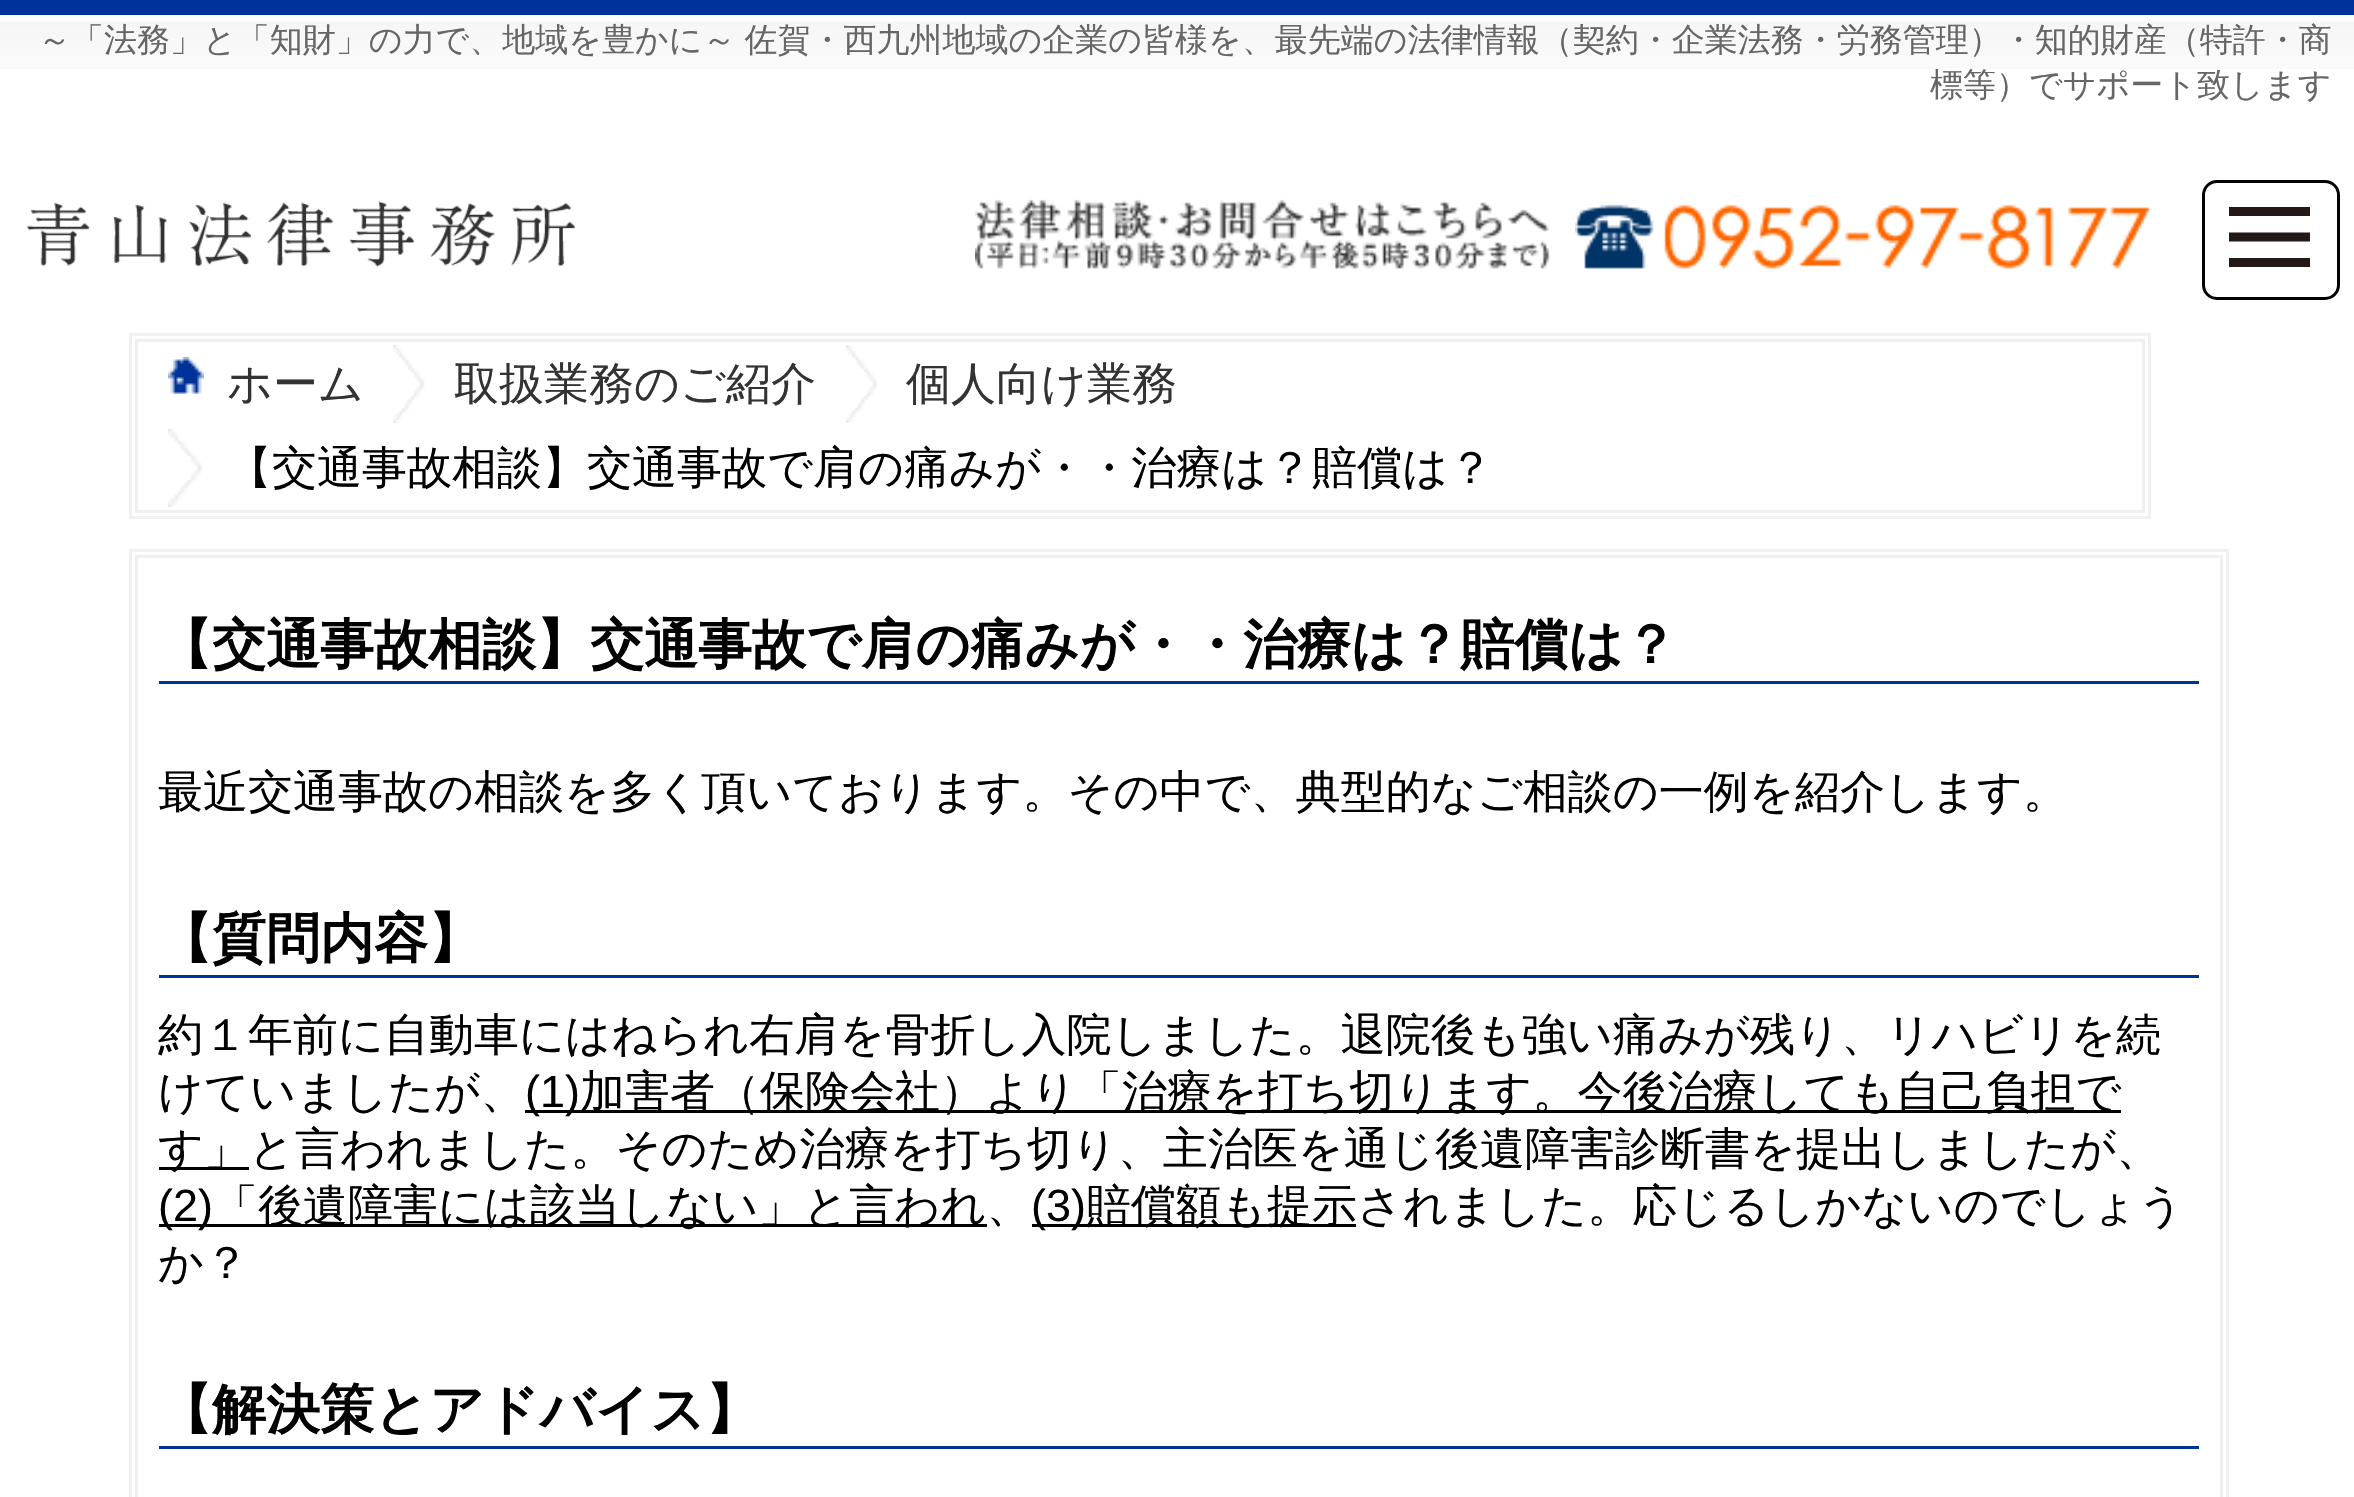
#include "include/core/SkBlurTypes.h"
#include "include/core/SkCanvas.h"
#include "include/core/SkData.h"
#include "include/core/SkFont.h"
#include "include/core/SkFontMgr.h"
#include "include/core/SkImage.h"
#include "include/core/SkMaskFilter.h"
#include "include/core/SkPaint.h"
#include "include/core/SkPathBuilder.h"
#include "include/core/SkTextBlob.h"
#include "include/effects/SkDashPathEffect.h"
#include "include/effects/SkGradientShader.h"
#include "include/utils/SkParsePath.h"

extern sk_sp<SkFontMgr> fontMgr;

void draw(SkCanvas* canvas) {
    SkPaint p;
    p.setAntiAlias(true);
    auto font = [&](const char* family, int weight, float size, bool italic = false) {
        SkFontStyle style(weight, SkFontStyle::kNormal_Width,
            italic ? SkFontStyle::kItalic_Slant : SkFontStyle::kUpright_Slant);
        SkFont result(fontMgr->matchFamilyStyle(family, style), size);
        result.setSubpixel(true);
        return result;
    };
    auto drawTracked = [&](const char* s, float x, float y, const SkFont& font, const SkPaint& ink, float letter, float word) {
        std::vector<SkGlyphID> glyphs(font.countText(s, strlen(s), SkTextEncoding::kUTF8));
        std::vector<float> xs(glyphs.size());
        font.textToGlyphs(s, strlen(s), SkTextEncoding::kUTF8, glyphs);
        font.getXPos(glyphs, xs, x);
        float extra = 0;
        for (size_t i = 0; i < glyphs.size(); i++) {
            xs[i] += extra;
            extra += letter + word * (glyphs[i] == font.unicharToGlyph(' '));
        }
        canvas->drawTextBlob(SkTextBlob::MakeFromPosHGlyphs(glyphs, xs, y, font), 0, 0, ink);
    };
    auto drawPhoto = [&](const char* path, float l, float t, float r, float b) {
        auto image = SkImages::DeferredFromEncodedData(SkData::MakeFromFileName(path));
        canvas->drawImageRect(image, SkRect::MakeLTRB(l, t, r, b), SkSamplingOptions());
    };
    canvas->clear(0xFFFFFFFF);
    drawPhoto("media/1.png", 0, 21, 2354, 69);
    p.setColor(0xFF003399);
    canvas->drawRect(SkRect::MakeLTRB(0, 0, 2354, 15), p);
    auto font1 = font("WenQuanYi Zen Hei", 500, 33);
    p.setColor(0xFF666666);
    drawTracked("～「法務」と「知財」の力で、地域を豊かに～ 佐賀・西九州地域の企業の皆様を、最先端の法律情報（契約・企業法務・労務管理）・知的財産（特許・商", 38, 51, font1, p, 0, -1);
    canvas->drawString("標等）でサポート致します", 1930, 96, font1, p);
    drawPhoto("media/2.png", 26, 201, 575, 267);
    drawPhoto("media/3.png", 975, 199, 1550, 269);
    drawPhoto("media/4.png", 1575, 204, 2151, 269);
    p.setStyle(SkPaint::kStroke_Style);
    p.setStrokeWidth(3);
    p.setColor(0xFF000000);
    canvas->drawRoundRect(SkRect::MakeLTRB(2203.5f, 181.5f, 2338.5f, 298.5f), 13.5f, 13.5f, p);
    drawPhoto("media/5.png", 2229, 207, 2310, 267);
    p.setColor(0xFFF0F0F0);
    canvas->drawRect(SkRect::MakeLTRB(130.5f, 334.5f, 2149.5f, 517.5f), p);
    canvas->drawRect(SkRect::MakeLTRB(136.5f, 340.5f, 2143.5f, 511.5f), p);
    drawPhoto("media/6.png", 168, 357, 204, 394);
    auto font2 = font("WenQuanYi Zen Hei", 500, 45);
    p.setStyle(SkPaint::kFill_Style);
    p.setColor(0xFF333333);
    canvas->drawString("ホーム", 227, 399, font2, p);
    drawPhoto("media/7.png", 393, 345, 425, 423);
    canvas->drawString("取扱業務のご紹介", 454, 399, font2, p);
    drawPhoto("media/8.png", 846, 345, 877, 423);
    canvas->drawString("個人向け業務", 906, 399, font2, p);
    drawPhoto("media/9.png", 168, 429, 202, 507);
    p.setColor(0xFF000000);
    canvas->drawString("【交通事故相談】交通事故で肩の痛みが・・治療は？賠償は？", 227, 483, font2, p);
    p.setStyle(SkPaint::kStroke_Style);
    p.setColor(0xFFF0F0F0);
    canvas->drawRect(SkRect::MakeLTRB(130.5f, 550.5f, 2227.5f, 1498.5f), p);
    canvas->drawRect(SkRect::MakeLTRB(136.5f, 556.5f, 2221.5f, 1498.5f), p);
    p.setStyle(SkPaint::kFill_Style);
    p.setColor(0xFF003399);
    canvas->drawRect(SkRect::MakeLTRB(159, 681, 2199, 684), p);
    auto font3 = font("WenQuanYi Zen Hei", 700, 54);
    p.setColor(0xFF000000);
    canvas->drawString("【交通事故相談】交通事故で肩の痛みが・・治療は？賠償は？", 158, 663, font3, p);
    canvas->drawString("最近交通事故の相談を多く頂いております。その中で、典型的なご相談の一例を紹介します。", 158, 807, font2, p);
    p.setColor(0xFF003399);
    canvas->drawRect(SkRect::MakeLTRB(159, 975, 2199, 978), p);
    p.setColor(0xFF000000);
    canvas->drawString("【質問内容】", 158, 957, font3, p);
    canvas->drawString("約１年前に自動車にはねられ右肩を骨折し入院しました。退院後も強い痛みが残り、リハビリを続", 158, 1050, font2, p);
    canvas->drawString("けていましたが、", 158, 1107, font2, p);
    canvas->drawRect(SkRect::MakeLTRB(525, 1110, 2121, 1113), p);
    auto font4 = font("Liberation Sans", 400, 45);
    canvas->drawString("(1)", 525, 1107, font4, p);
    canvas->drawString("加害者（保険会社）より「治療を打ち切ります。今後治療しても自己負担で", 580, 1107, font2, p);
    canvas->drawRect(SkRect::MakeLTRB(159, 1167, 249, 1170), p);
    canvas->drawString("す」と言われました。そのため治療を打ち切り、主治医を通じ後遺障害診断書を提出しましたが、", 158, 1164, font2, p);
    canvas->drawRect(SkRect::MakeLTRB(159, 1224, 987, 1227), p);
    canvas->drawString("(2)", 158, 1221, font4, p);
    canvas->drawString("「後遺障害には該当しない」と言われ、", 213, 1221, font2, p);
    canvas->drawRect(SkRect::MakeLTRB(1032, 1224, 1356, 1227), p);
    canvas->drawString("(3)", 1031, 1221, font4, p);
    canvas->drawString("賠償額も提示されました。応じるしかないのでしょう", 1086, 1221, font2, p);
    canvas->drawString("か？", 158, 1278, font2, p);
    p.setColor(0xFF003399);
    canvas->drawRect(SkRect::MakeLTRB(159, 1446, 2199, 1449), p);
    p.setColor(0xFF000000);
    canvas->drawString("【解決策とアドバイス】", 158, 1428, font3, p);
}
